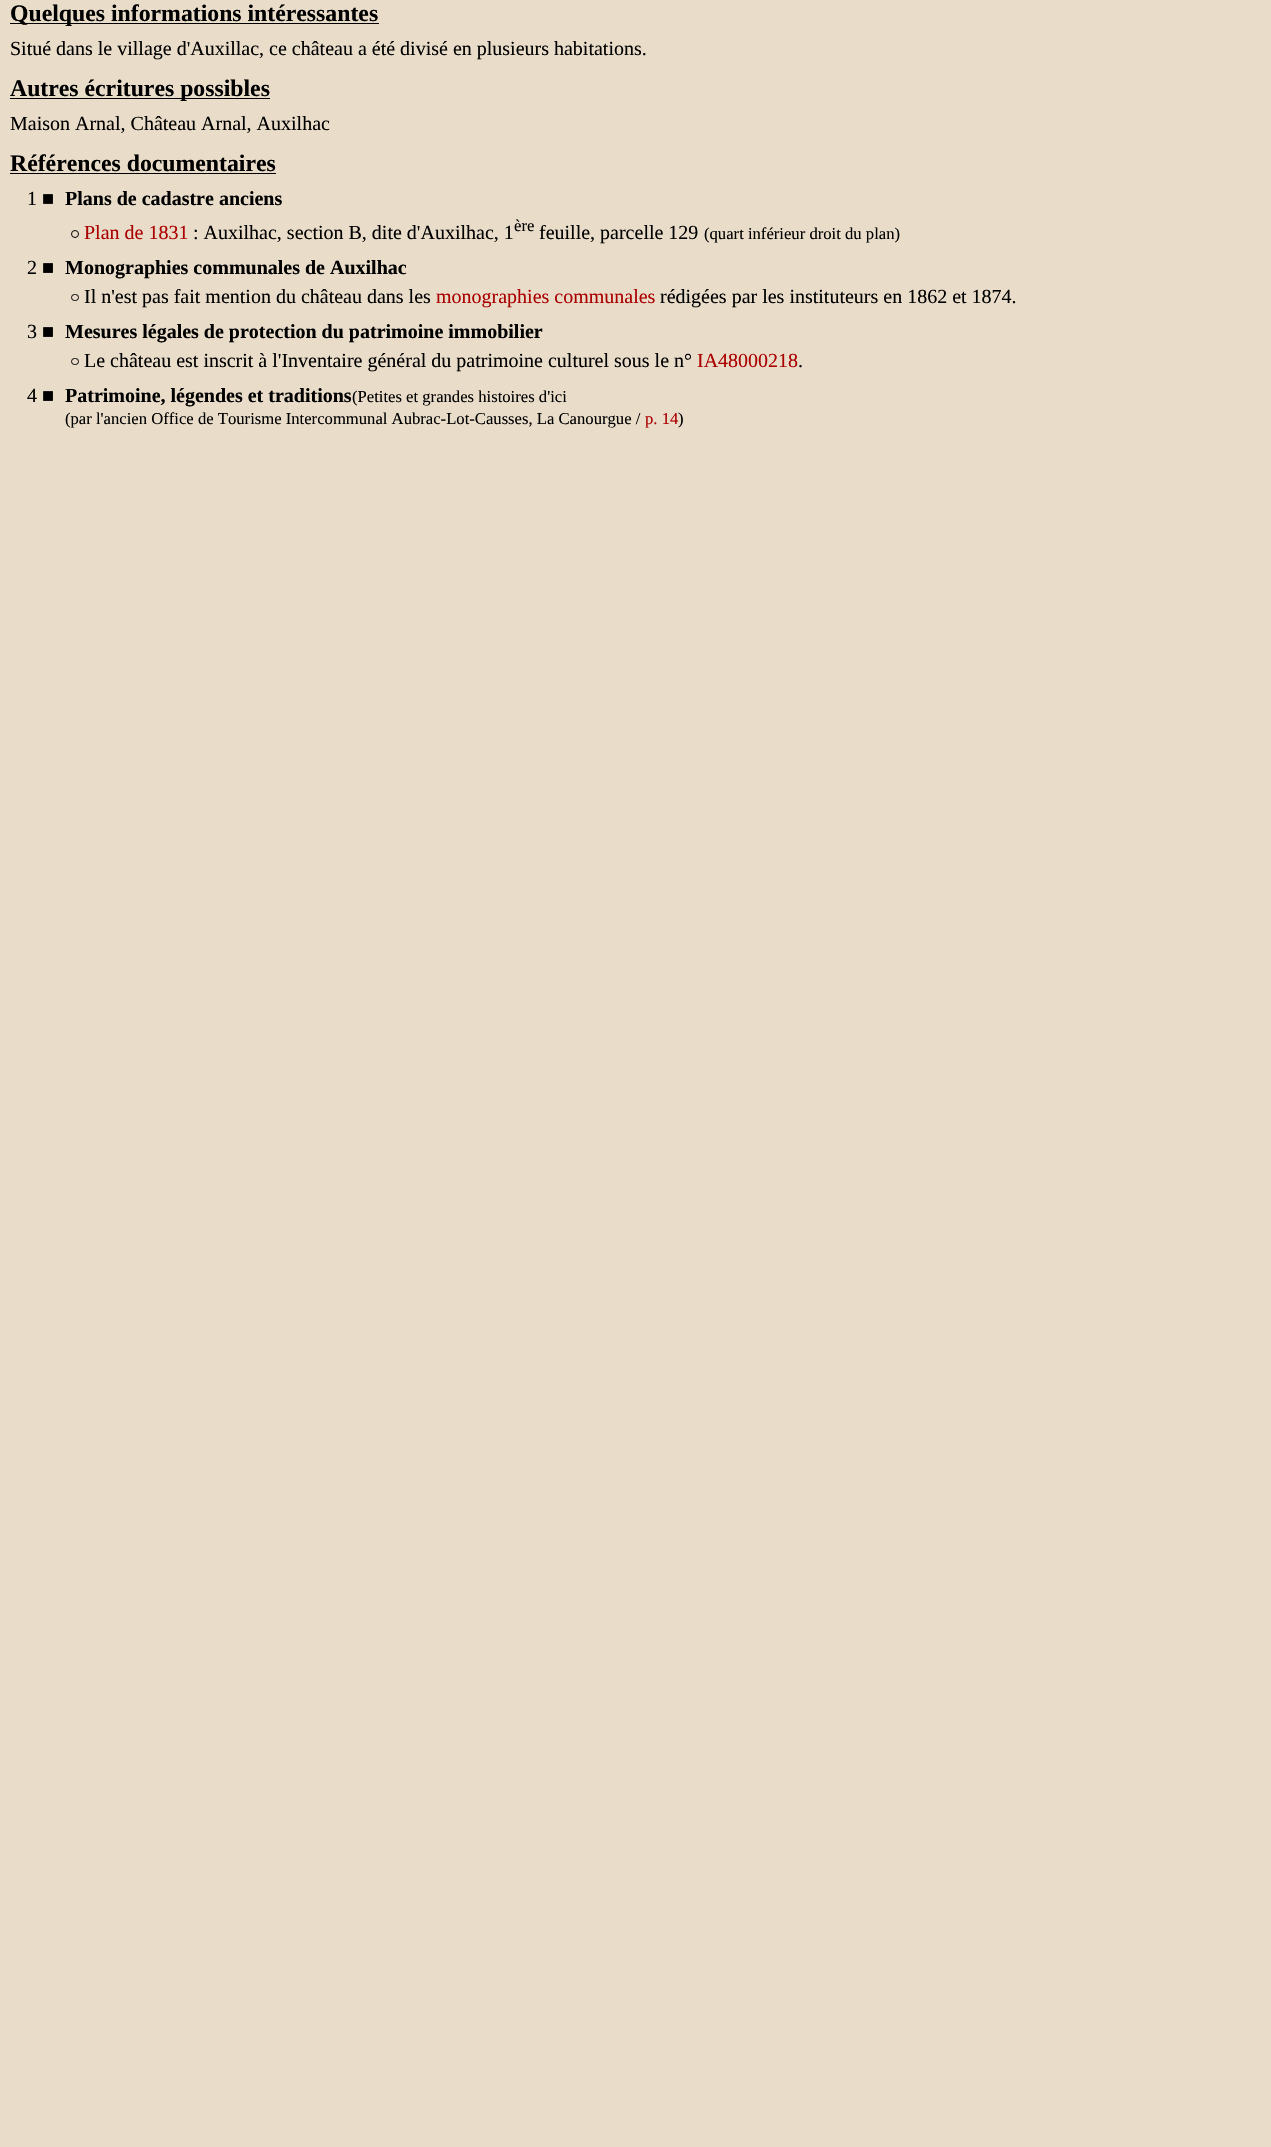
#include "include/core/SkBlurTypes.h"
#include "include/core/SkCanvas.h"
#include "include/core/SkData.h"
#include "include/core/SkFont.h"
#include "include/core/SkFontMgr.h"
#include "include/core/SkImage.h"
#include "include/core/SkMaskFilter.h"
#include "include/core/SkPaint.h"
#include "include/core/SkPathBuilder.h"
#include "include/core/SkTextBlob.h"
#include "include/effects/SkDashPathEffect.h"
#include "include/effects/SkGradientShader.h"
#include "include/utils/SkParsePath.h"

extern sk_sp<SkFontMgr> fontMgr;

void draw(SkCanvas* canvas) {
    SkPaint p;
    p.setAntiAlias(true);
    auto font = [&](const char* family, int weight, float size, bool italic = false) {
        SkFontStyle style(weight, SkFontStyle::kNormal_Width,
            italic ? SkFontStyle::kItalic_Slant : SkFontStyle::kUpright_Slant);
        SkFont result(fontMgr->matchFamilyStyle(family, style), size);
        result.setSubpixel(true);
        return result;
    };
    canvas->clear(0xFFE9DDCA);
    p.setColor(0xFF000000);
    canvas->drawRect(SkRect::MakeLTRB(10, 23, 379, 24), p);
    auto font1 = font("Liberation Serif", 700, 23.75f);
    canvas->drawString("Quelques informations intéressantes", 10, 21, font1, p);
    auto font2 = font("Liberation Serif", 400, 20);
    canvas->drawString("Situé dans le village d'Auxillac, ce château a été divisé en plusieurs habitations.", 10, 55, font2, p);
    canvas->drawRect(SkRect::MakeLTRB(10, 98, 270, 99), p);
    canvas->drawString("Autres écritures possibles", 10, 96, font1, p);
    canvas->drawString("Maison Arnal, Château Arnal, Auxilhac", 10, 130, font2, p);
    canvas->drawString("Références documentaires", 10, 171, font1, p);
    canvas->drawRect(SkRect::MakeLTRB(10, 173, 276, 174), p);
    canvas->drawString("1 ■", 27, 205, font2, p);
    auto font3 = font("Liberation Serif", 700, 20);
    canvas->drawString("Plans de cadastre anciens", 65, 205, font3, p);
    p.setStyle(SkPaint::kStroke_Style);
    p.setStrokeWidth(1);
    canvas->drawCircle(75, 234, 3.5f, p);
    p.setStyle(SkPaint::kFill_Style);
    p.setColor(0xFFAA0000);
    canvas->drawString("Plan de 1831", 84, 239, font2, p);
    p.setColor(0xFF000000);
    canvas->drawString(": Auxilhac, section B, dite d'Auxilhac, 1", 193, 239, font2, p);
    auto font4 = font("Liberation Serif", 400, 16.65f);
    canvas->drawString("ère", 514, 231, font4, p);
    canvas->drawString("feuille, parcelle 129", 539, 239, font2, p);
    canvas->drawString("(quart inférieur droit du plan)", 704, 239, font4, p);
    canvas->drawString("2 ■", 27, 274, font2, p);
    canvas->drawString("Monographies communales de Auxilhac", 65, 274, font3, p);
    p.setStyle(SkPaint::kStroke_Style);
    canvas->drawRoundRect(SkRect::MakeLTRB(71.5f, 294.5f, 78.5f, 300.5f), 3, 3, p);
    p.setStyle(SkPaint::kFill_Style);
    canvas->drawString("Il n'est pas fait mention du château dans les", 84, 303, font2, p);
    p.setColor(0xFFAA0000);
    canvas->drawString("monographies communales", 436, 303, font2, p);
    p.setColor(0xFF000000);
    canvas->drawString("rédigées par les instituteurs en 1862 et 1874.", 660, 303, font2, p);
    canvas->drawString("3 ■", 27, 338, font2, p);
    canvas->drawString("Mesures légales de protection du patrimoine immobilier", 65, 338, font3, p);
    p.setStyle(SkPaint::kStroke_Style);
    canvas->drawRoundRect(SkRect::MakeLTRB(71.5f, 358.5f, 78.5f, 364.5f), 3, 3, p);
    p.setStyle(SkPaint::kFill_Style);
    canvas->drawString("Le château est inscrit à l'Inventaire général du patrimoine culturel sous le n°", 84, 367, font2, p);
    p.setColor(0xFFAA0000);
    canvas->drawString("IA48000218", 697, 367, font2, p);
    p.setColor(0xFF000000);
    canvas->drawString(".", 798, 367, font2, p);
    canvas->drawString("4 ■", 27, 402, font2, p);
    canvas->drawString("Patrimoine, légendes et traditions", 65, 402, font3, p);
    canvas->drawString("(Petites et grandes histoires d'ici", 352, 402, font4, p);
    canvas->drawString("(par l'ancien Office de Tourisme Intercommunal Aubrac-Lot-Causses, La Canourgue /", 65, 424, font4, p);
    p.setColor(0xFFAA0000);
    canvas->drawString("p. 14", 645, 424, font4, p);
    p.setColor(0xFF000000);
    canvas->drawString(")", 678, 424, font4, p);
}
